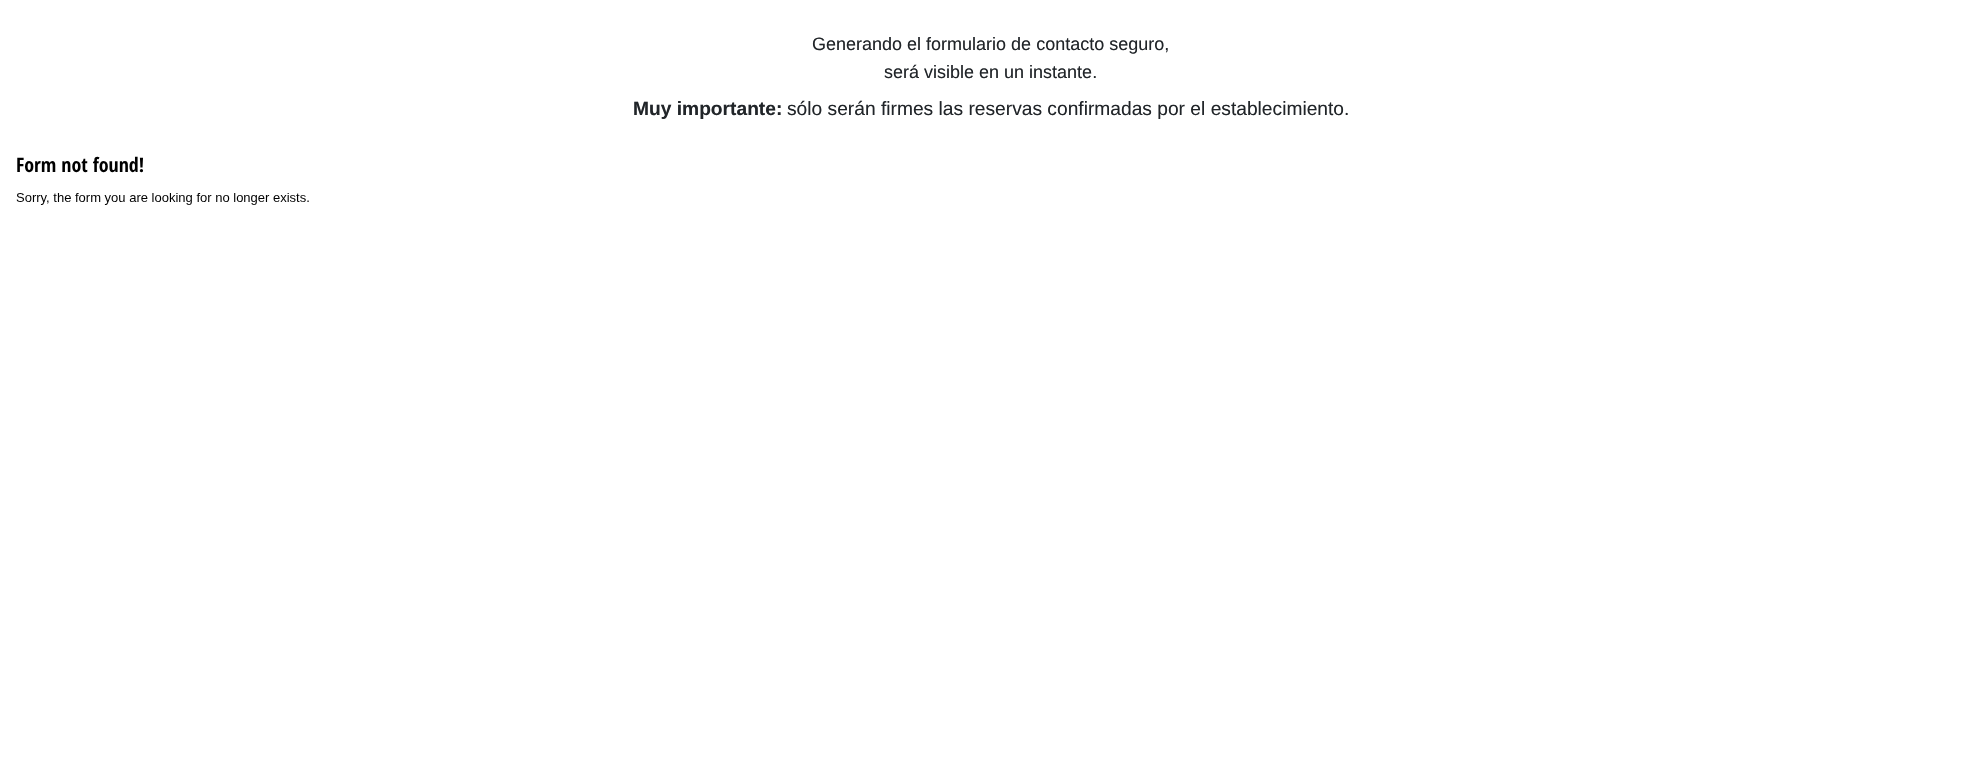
#include "include/core/SkBlurTypes.h"
#include "include/core/SkCanvas.h"
#include "include/core/SkData.h"
#include "include/core/SkFont.h"
#include "include/core/SkFontMgr.h"
#include "include/core/SkImage.h"
#include "include/core/SkMaskFilter.h"
#include "include/core/SkPaint.h"
#include "include/core/SkPathBuilder.h"
#include "include/core/SkTextBlob.h"
#include "include/effects/SkDashPathEffect.h"
#include "include/effects/SkGradientShader.h"
#include "include/utils/SkParsePath.h"

extern sk_sp<SkFontMgr> fontMgr;

void draw(SkCanvas* canvas) {
    SkPaint p;
    p.setAntiAlias(true);
    auto font = [&](const char* family, int weight, float size, bool italic = false) {
        SkFontStyle style(weight, SkFontStyle::kNormal_Width,
            italic ? SkFontStyle::kItalic_Slant : SkFontStyle::kUpright_Slant);
        SkFont result(fontMgr->matchFamilyStyle(family, style), size);
        result.setSubpixel(true);
        return result;
    };
    auto drawPhoto = [&](const char* path, float l, float t, float r, float b) {
        auto image = SkImages::DeferredFromEncodedData(SkData::MakeFromFileName(path));
        canvas->drawImageRect(image, SkRect::MakeLTRB(l, t, r, b), SkSamplingOptions());
    };
    canvas->clear(0xFFFFFFFF);
    auto font1 = font("Liberation Sans", 400, 18);
    p.setColor(0xFF212529);
    canvas->drawString("Generando el formulario de contacto seguro,", 812, 50, font1, p);
    canvas->drawString("será visible en un instante.", 884, 78, font1, p);
    auto font2 = font("Liberation Sans", 700, 19.2f);
    canvas->drawString("Muy importante:", 633, 115, font2, p);
    auto font3 = font("Liberation Sans", 400, 19.2f);
    canvas->drawString("sólo serán firmes las reservas confirmadas por el establecimiento.", 787, 115, font3, p);
    drawPhoto("media/1.png", 16, 156, 309, 205);
}
